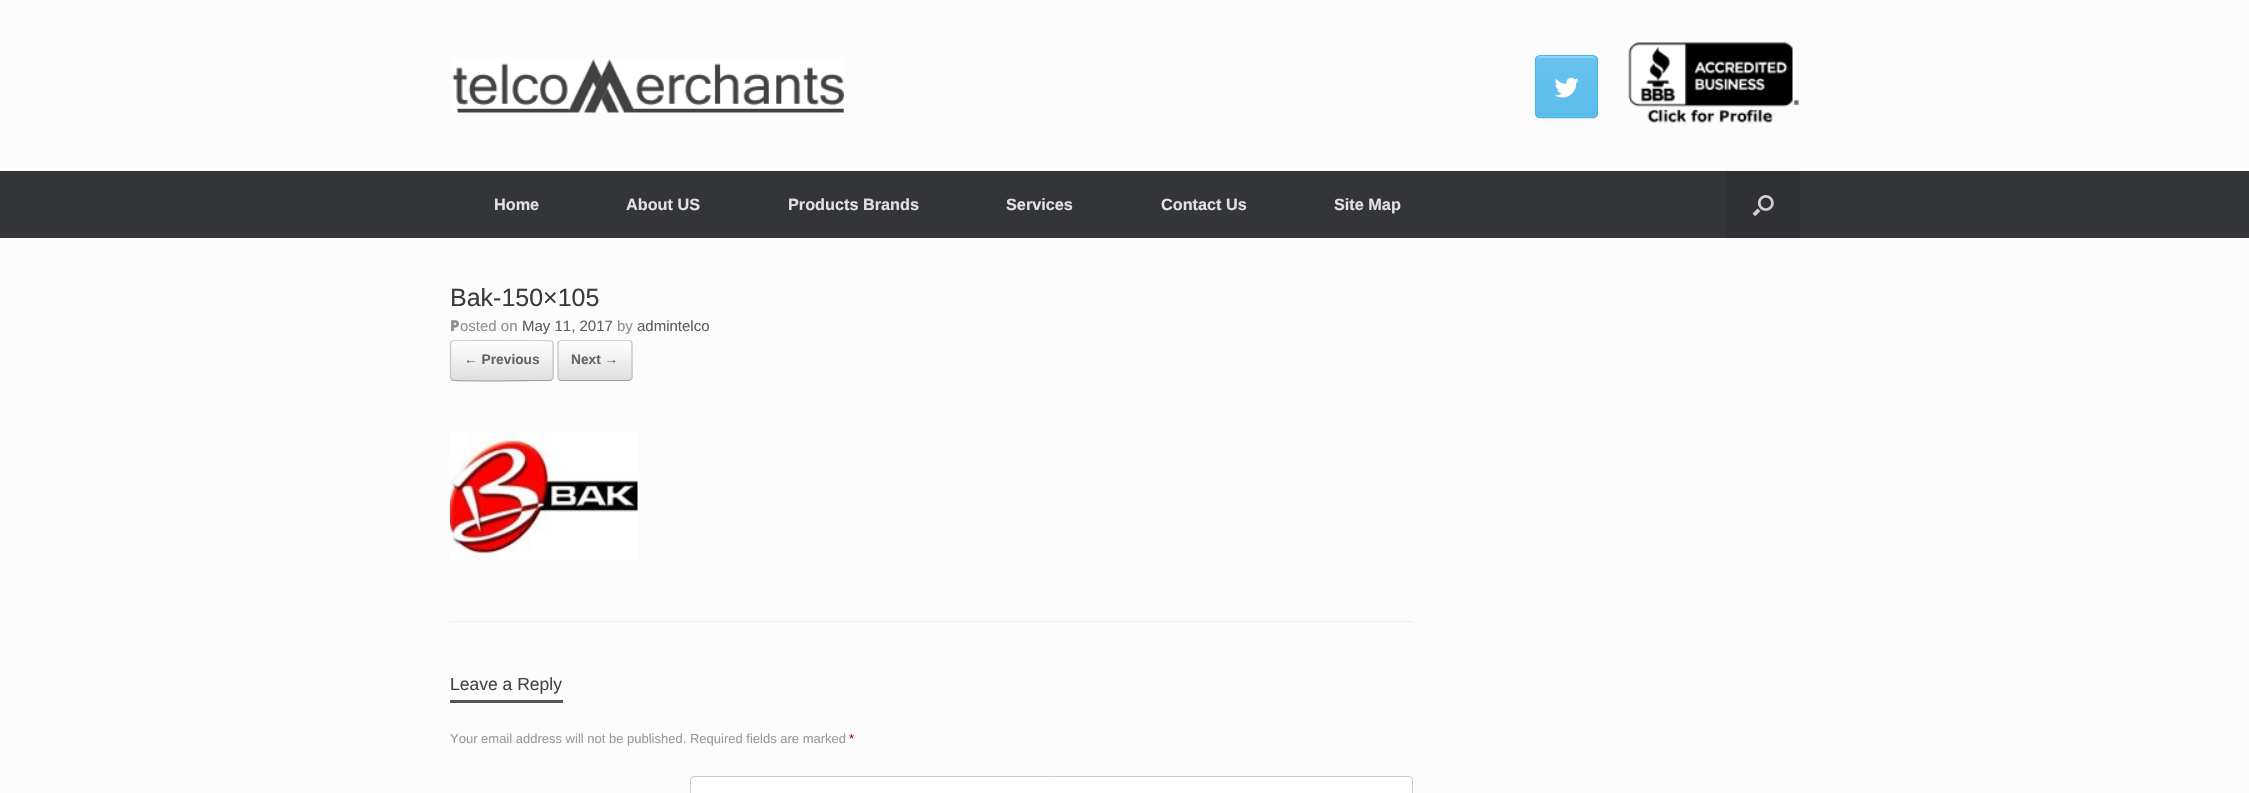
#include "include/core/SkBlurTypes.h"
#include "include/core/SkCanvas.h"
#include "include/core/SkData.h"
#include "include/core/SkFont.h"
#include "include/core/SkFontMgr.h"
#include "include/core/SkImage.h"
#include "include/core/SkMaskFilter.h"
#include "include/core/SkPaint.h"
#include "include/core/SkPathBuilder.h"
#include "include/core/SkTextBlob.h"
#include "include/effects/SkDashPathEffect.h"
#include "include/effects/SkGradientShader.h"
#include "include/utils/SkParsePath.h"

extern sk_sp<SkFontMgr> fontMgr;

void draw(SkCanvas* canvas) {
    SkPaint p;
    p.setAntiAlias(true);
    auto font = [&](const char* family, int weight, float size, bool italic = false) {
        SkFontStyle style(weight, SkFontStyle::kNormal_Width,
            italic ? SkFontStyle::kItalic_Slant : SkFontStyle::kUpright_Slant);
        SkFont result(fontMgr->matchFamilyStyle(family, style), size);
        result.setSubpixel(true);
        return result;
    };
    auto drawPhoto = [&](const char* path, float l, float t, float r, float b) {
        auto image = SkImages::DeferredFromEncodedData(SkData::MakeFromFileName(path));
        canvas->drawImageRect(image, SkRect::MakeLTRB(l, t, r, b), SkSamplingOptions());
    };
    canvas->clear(0xFFFCFCFC);
    drawPhoto("media/1.png", 452, 58, 844, 113);
    p.setColor(0x1A000000);
    p.setMaskFilter(SkMaskFilter::MakeBlur(kNormal_SkBlurStyle, 0.5f));
    canvas->drawRoundRect(SkRect::MakeLTRB(1535, 56, 1598, 119), 5, 5, p);
    p.setMaskFilter(nullptr);
    canvas->save();
    canvas->clipPath(SkPathBuilder().moveTo(1540, 55).lineTo(1593, 55).cubicTo(1596, 55, 1598, 57, 1598, 60).lineTo(1598, 113).cubicTo(1598, 116, 1596, 118, 1593, 118).lineTo(1540, 118).cubicTo(1537, 118, 1535, 116, 1535, 113).lineTo(1535, 60).cubicTo(1535, 57, 1537, 55, 1540, 55).close().detach(), true);
    {
        const SkColor colors[] = {0xFF5BBCEC, 0xFF69C2EE};
        const float stops[] = {0, 1};
        const SkPoint ends[] = {{1536, 116}, {1536, 56}};
        p.setShader(SkGradientShader::MakeLinear(ends, colors, stops, 2, SkTileMode::kClamp));
        p.setAlpha(255);
    }
    canvas->drawRect(SkRect::MakeLTRB(1535, 56, 1598, 116), p);
    {
        const SkColor colors[] = {0xFF5BBCEC, 0xFF69C2EE};
        const float stops[] = {0, 1};
        const SkPoint ends[] = {{1536, 176}, {1536, 116}};
        p.setShader(SkGradientShader::MakeLinear(ends, colors, stops, 2, SkTileMode::kClamp));
        p.setAlpha(255);
    }
    canvas->drawRect(SkRect::MakeLTRB(1535, 116, 1598, 118), p);
    canvas->restore();
    p.setShader(nullptr);
    p.setColor(0xFF8ED1F2);
    canvas->drawPath(SkPathBuilder().moveTo(1540, 58).lineTo(1592, 58).cubicTo(1595, 58, 1596, 59, 1596, 61).cubicTo(1596, 54, 1588, 56, 1583, 56).lineTo(1549, 56).cubicTo(1544, 56, 1536, 54, 1536, 61).cubicTo(1536, 59, 1538, 58, 1540, 58).close().detach(), p);
    p.setStyle(SkPaint::kStroke_Style);
    p.setStrokeWidth(1);
    p.setColor(0xFF44B3E9);
    canvas->drawRoundRect(SkRect::MakeLTRB(1535.5f, 55.5f, 1597.5f, 117.5f), 4.5f, 4.5f, p);
    drawPhoto("media/2.png", 1554, 77, 1579, 98);
    drawPhoto("media/3.png", 1628, 42, 1799, 123);
    p.setStyle(SkPaint::kFill_Style);
    p.setColor(0xFF343538);
    canvas->drawRect(SkRect::MakeLTRB(0, 171, 2249, 238), p);
    auto font1 = font("Liberation Sans", 700, 16.25f);
    p.setColor(0xFFE2E2E2);
    {
        const struct { const char* s; float x, y; } items[] = {
            {"Home", 494, 210},
            {"About US", 626, 210},
            {"Products Brands", 788, 210},
            {"Services", 1006, 210},
            {"Contact Us", 1161, 210},
            {"Site Map", 1334, 210},
        };
        for (auto [s, x, y] : items) {
            canvas->drawString(s, x, y, font1, p);
        }
    }
    p.setColor(0xFF303134);
    canvas->drawRect(SkRect::MakeLTRB(1726, 171, 1800, 238), p);
    drawPhoto("media/4.png", 1752, 195, 1774, 217);
    p.setColor(0xFFEEEEEE);
    canvas->drawRect(SkRect::MakeLTRB(450, 621, 1413, 622), p);
    auto font2 = font("Liberation Sans", 400, 25);
    p.setColor(0xFF3B3B3B);
    canvas->drawString("Bak-150×105", 450, 306, font2, p);
    auto font3 = font("Noto Sans", 900, 15);
    p.setColor(0xFF8F8F8F);
    canvas->drawString("P", 450, 331, font3, p);
    auto font4 = font("Liberation Sans", 400, 15);
    canvas->drawString("osted on", 460, 331, font4, p);
    p.setColor(0xFF5E5E5E);
    canvas->drawString("May 11, 2017", 522, 331, font4, p);
    p.setColor(0xFF8F8F8F);
    canvas->drawString("by", 617, 331, font4, p);
    p.setColor(0xFF5E5E5E);
    canvas->drawString("admintelco", 637, 331, font4, p);
    canvas->save();
    canvas->clipPath(SkPathBuilder().moveTo(454, 340).lineTo(550, 340).cubicTo(552, 340, 554, 342, 554, 344).lineTo(554, 377).cubicTo(554, 379, 552, 381, 550, 381).lineTo(454, 381).cubicTo(452, 381, 450, 379, 450, 377).lineTo(450, 344).cubicTo(450, 342, 452, 340, 454, 340).close().detach(), true);
    {
        const SkColor colors[] = {0xFFDFDFDF, 0xFFFFFFFF};
        const float stops[] = {0, 1};
        const SkPoint ends[] = {{451, 341}, {451, 303}};
        p.setShader(SkGradientShader::MakeLinear(ends, colors, stops, 2, SkTileMode::kClamp));
        p.setAlpha(255);
    }
    canvas->drawRect(SkRect::MakeLTRB(450, 340, 554, 341), p);
    {
        const SkColor colors[] = {0xFFDFDFDF, 0xFFFFFFFF};
        const float stops[] = {0, 1};
        const SkPoint ends[] = {{451, 380}, {451, 341}};
        p.setShader(SkGradientShader::MakeLinear(ends, colors, stops, 2, SkTileMode::kClamp));
        p.setAlpha(255);
    }
    canvas->drawRect(SkRect::MakeLTRB(450, 341, 554, 380), p);
    {
        const SkColor colors[] = {0xFFDFDFDF, 0xFFFFFFFF};
        const float stops[] = {0, 1};
        const SkPoint ends[] = {{451, 419}, {451, 380}};
        p.setShader(SkGradientShader::MakeLinear(ends, colors, stops, 2, SkTileMode::kClamp));
        p.setAlpha(255);
    }
    canvas->drawRect(SkRect::MakeLTRB(450, 380, 554, 381), p);
    canvas->restore();
    p.setStyle(SkPaint::kStroke_Style);
    p.setStrokeWidth(1.2f);
    p.setShader(nullptr);
    p.setColor(0xFFD2D2D2);
    canvas->drawPath(SkPathBuilder().moveTo(451.5f, 341.5f).lineTo(454, 340.5f).lineTo(470, 340.5f).cubicTo(478.5f, 340.5f, 550, 339.5f, 552, 341.5f).detach(), p);
    p.setColor(0xFFC3C3C3);
    canvas->drawPath(SkPathBuilder().moveTo(552, 341.5f).cubicTo(553, 342, 553, 343, 553, 344).lineTo(553, 377.5f).cubicTo(553, 378.5f, 553, 379, 552, 379.5f).detach(), p);
    p.setColor(0xFF9F9F9F);
    canvas->drawPath(SkPathBuilder().moveTo(552, 379.5f).lineTo(550, 380.5f).lineTo(534, 380.5f).cubicTo(525, 380.5f, 454, 381.5f, 452, 380).lineTo(451.5f, 379.5f).detach(), p);
    p.setColor(0xFFC3C3C3);
    canvas->drawPath(SkPathBuilder().moveTo(451.5f, 379.5f).cubicTo(451, 379, 450.5f, 378.5f, 450.5f, 377.5f).lineTo(450.5f, 344).cubicTo(450.5f, 343, 451, 342, 451.5f, 341.5f).detach(), p);
    auto font5 = font("Liberation Sans", 700, 13.75f);
    p.setStyle(SkPaint::kFill_Style);
    p.setColor(0xFF646464);
    canvas->drawString("← Previous", 464, 364, font5, p);
    canvas->save();
    canvas->clipPath(SkPathBuilder().moveTo(562, 340).lineTo(629, 340).cubicTo(631, 340, 633, 342, 633, 344).lineTo(633, 377).cubicTo(633, 379, 631, 381, 629, 381).lineTo(562, 381).cubicTo(560, 381, 558, 379, 558, 377).lineTo(558, 344).cubicTo(558, 342, 560, 340, 562, 340).close().detach(), true);
    {
        const SkColor colors[] = {0xFFDFDFDF, 0xFFFFFFFF};
        const float stops[] = {0, 1};
        const SkPoint ends[] = {{559, 341}, {559, 303}};
        p.setShader(SkGradientShader::MakeLinear(ends, colors, stops, 2, SkTileMode::kClamp));
        p.setAlpha(255);
    }
    canvas->drawRect(SkRect::MakeLTRB(558, 340, 633, 341), p);
    {
        const SkColor colors[] = {0xFFDFDFDF, 0xFFFFFFFF};
        const float stops[] = {0, 1};
        const SkPoint ends[] = {{559, 380}, {559, 341}};
        p.setShader(SkGradientShader::MakeLinear(ends, colors, stops, 2, SkTileMode::kClamp));
        p.setAlpha(255);
    }
    canvas->drawRect(SkRect::MakeLTRB(558, 341, 633, 380), p);
    {
        const SkColor colors[] = {0xFFDFDFDF, 0xFFFFFFFF};
        const float stops[] = {0, 1};
        const SkPoint ends[] = {{559, 419}, {559, 380}};
        p.setShader(SkGradientShader::MakeLinear(ends, colors, stops, 2, SkTileMode::kClamp));
        p.setAlpha(255);
    }
    canvas->drawRect(SkRect::MakeLTRB(558, 380, 633, 381), p);
    canvas->restore();
    p.setStyle(SkPaint::kStroke_Style);
    p.setShader(nullptr);
    p.setColor(0xFFD2D2D2);
    canvas->drawPath(SkPathBuilder().moveTo(559, 341.5f).lineTo(561, 340.5f).lineTo(629, 340.5f).lineTo(631, 341.5f).detach(), p);
    p.setColor(0xFFC3C3C3);
    canvas->drawPath(SkPathBuilder().moveTo(631, 341.5f).cubicTo(631.5f, 342, 632, 343, 632, 344).lineTo(632, 377.5f).cubicTo(632, 378.5f, 631.5f, 379, 631, 379.5f).detach(), p);
    p.setColor(0xFF9F9F9F);
    canvas->drawPath(SkPathBuilder().moveTo(631, 379.5f).lineTo(629, 380.5f).lineTo(561, 380.5f).lineTo(559, 379.5f).detach(), p);
    p.setColor(0xFFC3C3C3);
    canvas->drawPath(SkPathBuilder().moveTo(559, 379.5f).cubicTo(558.5f, 379, 558, 378.5f, 558, 377.5f).lineTo(558, 344).cubicTo(558, 343, 558.5f, 342, 559, 341.5f).detach(), p);
    p.setStyle(SkPaint::kFill_Style);
    p.setColor(0xFF646464);
    canvas->drawString("Next →", 571, 364, font5, p);
    drawPhoto("media/5.png", 450, 431, 638, 561);
    p.setColor(0xFF555555);
    canvas->drawRect(SkRect::MakeLTRB(450, 700, 563, 703), p);
    auto font6 = font("Liberation Sans", 400, 17.5f);
    p.setColor(0xFF444444);
    canvas->drawString("Leave a Reply", 450, 690, font6, p);
    auto font7 = font("Liberation Sans", 400, 13);
    p.setColor(0xFF999999);
    canvas->drawString("Your email address will not be published. Required fields are marked", 450, 743, font7, p);
    p.setColor(0xFFA40802);
    canvas->drawString("*", 849, 743, font7, p);
    p.setColor(0xFFFFFFFF);
    canvas->drawRoundRect(SkRect::MakeLTRB(690.5f, 776.5f, 1412.5f, 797.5f), 3.5f, 3.5f, p);
    p.setStyle(SkPaint::kStroke_Style);
    p.setStrokeWidth(1);
    p.setColor(0xFFCCCCCC);
    canvas->drawRoundRect(SkRect::MakeLTRB(690.5f, 776.5f, 1412.5f, 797.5f), 3.5f, 3.5f, p);
}
